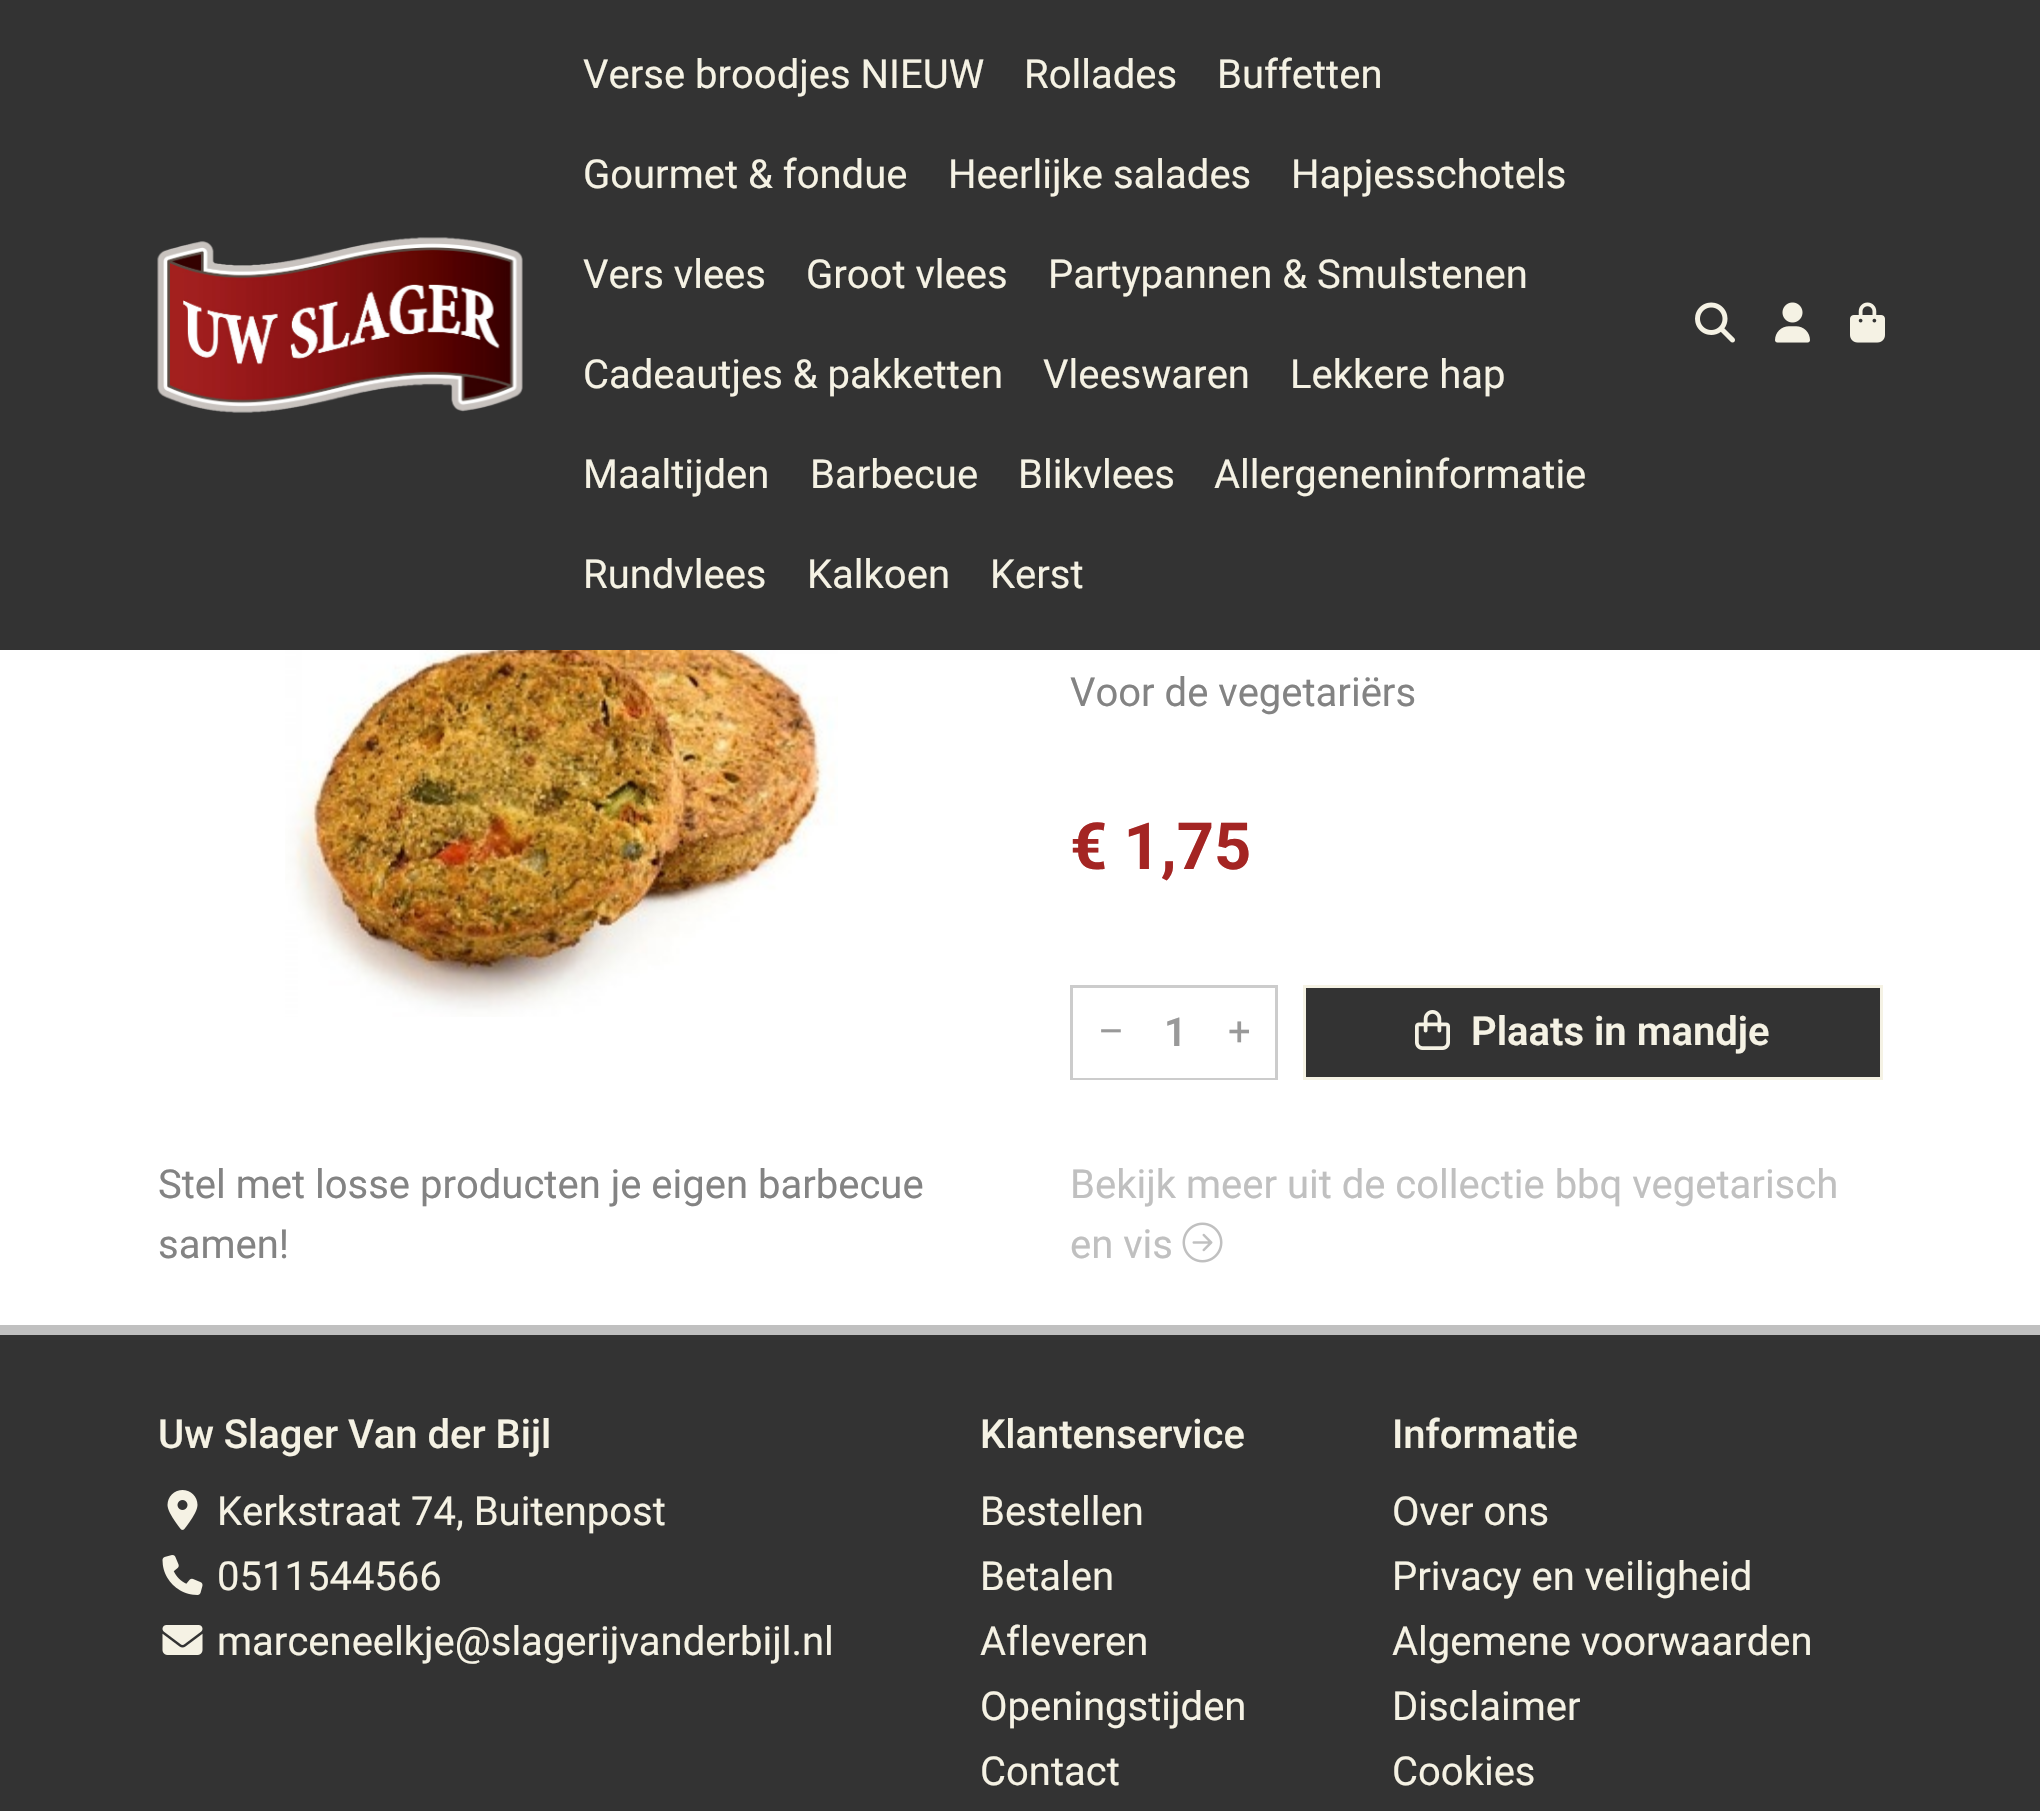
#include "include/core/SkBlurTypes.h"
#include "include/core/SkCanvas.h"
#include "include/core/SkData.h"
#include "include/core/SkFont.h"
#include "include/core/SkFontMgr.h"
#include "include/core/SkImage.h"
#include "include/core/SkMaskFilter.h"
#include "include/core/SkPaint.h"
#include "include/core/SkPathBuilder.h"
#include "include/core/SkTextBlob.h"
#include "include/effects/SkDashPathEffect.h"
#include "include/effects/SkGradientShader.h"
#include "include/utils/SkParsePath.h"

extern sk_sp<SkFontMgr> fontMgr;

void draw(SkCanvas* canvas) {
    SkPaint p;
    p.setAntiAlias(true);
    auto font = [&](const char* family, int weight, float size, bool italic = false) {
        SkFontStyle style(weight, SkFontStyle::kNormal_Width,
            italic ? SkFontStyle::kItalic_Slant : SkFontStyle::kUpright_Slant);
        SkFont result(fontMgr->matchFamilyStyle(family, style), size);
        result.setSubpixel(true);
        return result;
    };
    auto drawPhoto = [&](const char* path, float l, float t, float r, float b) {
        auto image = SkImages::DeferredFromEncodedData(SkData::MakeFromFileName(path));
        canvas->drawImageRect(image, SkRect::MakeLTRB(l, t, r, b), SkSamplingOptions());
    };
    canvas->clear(0xFFFFFFFF);
    p.setColor(0xFF333333);
    canvas->drawRect(SkRect::MakeLTRB(0, 0, 2040, 650), p);
    drawPhoto("media/1.png", 157, 237, 523, 413);
    auto font1 = font("Roboto", 400, 40);
    p.setColor(0xFFF5F2E4);
    {
        const struct { const char* s; float x, y; } items[] = {
            {"Verse broodjes NIEUW", 583, 88},
            {"Rollades", 1024, 88},
            {"Buffetten", 1217, 88},
            {"Gourmet & fondue", 583, 188},
            {"Heerlijke salades", 948, 188},
            {"Hapjesschotels", 1291, 188},
            {"Vers vlees", 583, 288},
            {"Groot vlees", 806, 288},
            {"Partypannen & Smulstenen", 1048, 288},
            {"Cadeautjes & pakketten", 583, 388},
            {"Vleeswaren", 1043, 388},
            {"Lekkere hap", 1290, 388},
            {"Maaltijden", 583, 488},
            {"Barbecue", 810, 488},
            {"Blikvlees", 1018, 488},
            {"Allergeneninformatie", 1214, 488},
            {"Rundvlees", 583, 588},
            {"Kalkoen", 807, 588},
            {"Kerst", 990, 588},
        };
        for (auto [s, x, y] : items) {
            canvas->drawString(s, x, y, font1, p);
        }
    }
    drawPhoto("media/2.png", 1695, 302, 1735, 343);
    drawPhoto("media/3.png", 1775, 302, 1810, 343);
    drawPhoto("media/4.png", 1850, 302, 1885, 343);
    drawPhoto("media/5.png", 285, 650, 838, 1017);
    p.setColor(0xFF838383);
    {
        const struct { const char* s; float x, y; } items[] = {
            {"Stel met losse producten je eigen barbecue", 158, 1198},
            {"samen!", 158, 1258},
            {"Voor de vegetariërs", 1070, 706},
        };
        for (auto [s, x, y] : items) {
            canvas->drawString(s, x, y, font1, p);
        }
    }
    auto font2 = font("Roboto", 700, 65);
    p.setColor(0xFFA42523);
    canvas->drawString("€ 1,75", 1070, 869, font2, p);
    p.setStyle(SkPaint::kStroke_Style);
    p.setStrokeWidth(3);
    p.setColor(0xFFCCCCCC);
    canvas->drawRect(SkRect::MakeLTRB(1071.5f, 986.5f, 1276.5f, 1078.5f), p);
    p.setStyle(SkPaint::kFill_Style);
    p.setColor(0xFFFFFFFF);
    canvas->drawRect(SkRect::MakeLTRB(1073, 1077, 1275, 1078), p);
    p.setColor(0xFF999999);
    canvas->drawString("–", 1098, 1045, font1, p);
    auto font3 = font("Roboto", 600, 40);
    canvas->drawString("1", 1164, 1046, font3, p);
    canvas->drawString("+", 1228, 1045, font1, p);
    p.setColor(0xFF333333);
    canvas->drawRect(SkRect::MakeLTRB(1304.5f, 986.5f, 1881.5f, 1078.5f), p);
    p.setStyle(SkPaint::kStroke_Style);
    p.setColor(0xFFF5F2E4);
    canvas->drawRect(SkRect::MakeLTRB(1304.5f, 986.5f, 1881.5f, 1078.5f), p);
    drawPhoto("media/6.png", 1415, 1010, 1450, 1050);
    p.setStyle(SkPaint::kFill_Style);
    canvas->drawString("Plaats in mandje", 1471, 1045, font3, p);
    p.setColor(0xFFC0C0C0);
    canvas->drawString("Bekijk meer uit de collectie bbq vegetarisch", 1070, 1198, font1, p);
    canvas->drawString("en vis", 1070, 1258, font1, p);
    drawPhoto("media/7.png", 1182, 1222, 1223, 1263);
    p.setColor(0xFF333333);
    canvas->drawRect(SkRect::MakeLTRB(0, 1335, 2040, 1811), p);
    p.setColor(0xFFC0C0C0);
    canvas->drawRect(SkRect::MakeLTRB(0, 1325, 2040, 1335), p);
    auto font4 = font("Roboto", 500, 40);
    p.setColor(0xFFF5F2E4);
    canvas->drawString("Uw Slager Van der Bijl", 158, 1448, font4, p);
    drawPhoto("media/8.png", 167, 1490, 198, 1530);
    canvas->drawString("Kerkstraat 74, Buitenpost", 217, 1525, font1, p);
    drawPhoto("media/9.png", 162, 1555, 203, 1595);
    canvas->drawString("0511544566", 217, 1590, font1, p);
    drawPhoto("media/10.png", 162, 1625, 203, 1655);
    canvas->drawString("marceneelkje@slagerijvanderbijl.nl", 217, 1655, font1, p);
    canvas->drawString("Klantenservice", 980, 1448, font4, p);
    {
        const struct { const char* s; float x, y; } items[] = {
            {"Bestellen", 980, 1525},
            {"Betalen", 980, 1590},
            {"Afleveren", 980, 1655},
            {"Openingstijden", 980, 1720},
            {"Contact", 980, 1785},
        };
        for (auto [s, x, y] : items) {
            canvas->drawString(s, x, y, font1, p);
        }
    }
    canvas->drawString("Informatie", 1392, 1448, font4, p);
    {
        const struct { const char* s; float x, y; } items[] = {
            {"Over ons", 1392, 1525},
            {"Privacy en veiligheid", 1392, 1590},
            {"Algemene voorwaarden", 1392, 1655},
            {"Disclaimer", 1392, 1720},
            {"Cookies", 1392, 1785},
        };
        for (auto [s, x, y] : items) {
            canvas->drawString(s, x, y, font1, p);
        }
    }
}
